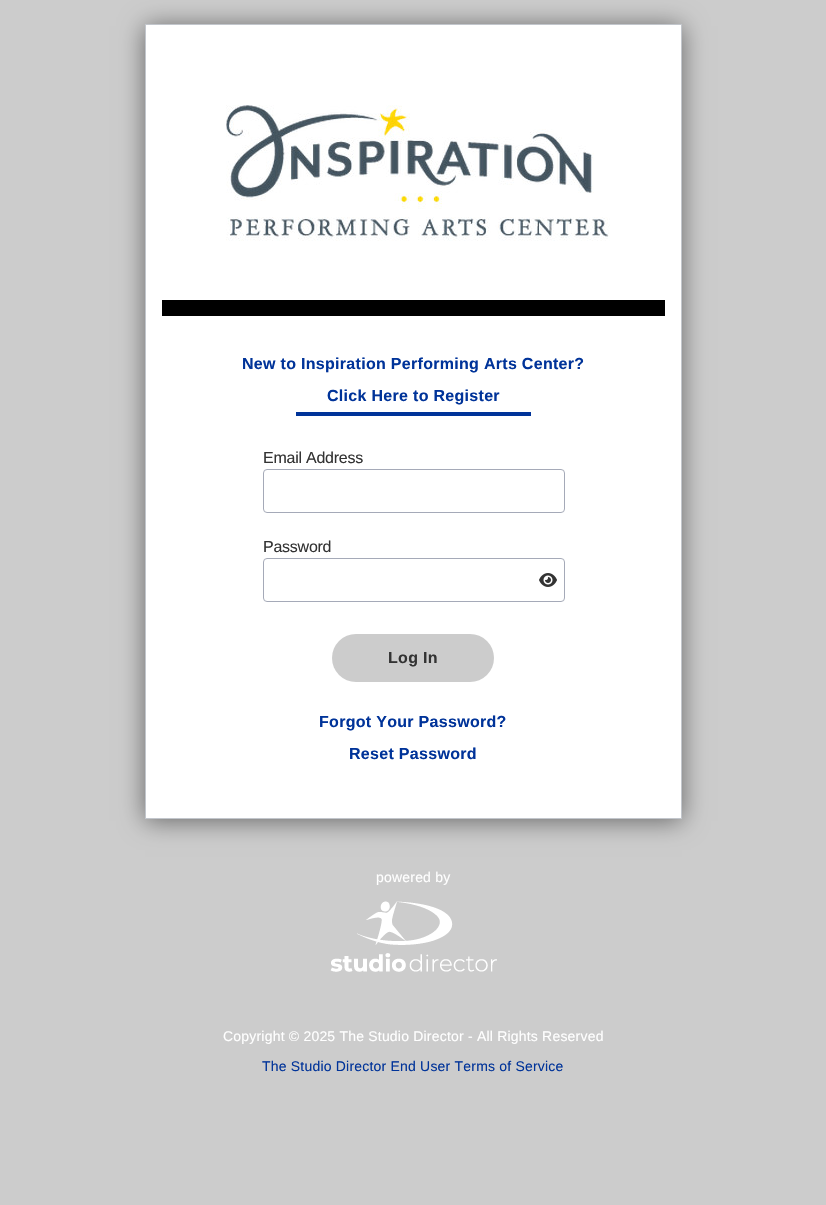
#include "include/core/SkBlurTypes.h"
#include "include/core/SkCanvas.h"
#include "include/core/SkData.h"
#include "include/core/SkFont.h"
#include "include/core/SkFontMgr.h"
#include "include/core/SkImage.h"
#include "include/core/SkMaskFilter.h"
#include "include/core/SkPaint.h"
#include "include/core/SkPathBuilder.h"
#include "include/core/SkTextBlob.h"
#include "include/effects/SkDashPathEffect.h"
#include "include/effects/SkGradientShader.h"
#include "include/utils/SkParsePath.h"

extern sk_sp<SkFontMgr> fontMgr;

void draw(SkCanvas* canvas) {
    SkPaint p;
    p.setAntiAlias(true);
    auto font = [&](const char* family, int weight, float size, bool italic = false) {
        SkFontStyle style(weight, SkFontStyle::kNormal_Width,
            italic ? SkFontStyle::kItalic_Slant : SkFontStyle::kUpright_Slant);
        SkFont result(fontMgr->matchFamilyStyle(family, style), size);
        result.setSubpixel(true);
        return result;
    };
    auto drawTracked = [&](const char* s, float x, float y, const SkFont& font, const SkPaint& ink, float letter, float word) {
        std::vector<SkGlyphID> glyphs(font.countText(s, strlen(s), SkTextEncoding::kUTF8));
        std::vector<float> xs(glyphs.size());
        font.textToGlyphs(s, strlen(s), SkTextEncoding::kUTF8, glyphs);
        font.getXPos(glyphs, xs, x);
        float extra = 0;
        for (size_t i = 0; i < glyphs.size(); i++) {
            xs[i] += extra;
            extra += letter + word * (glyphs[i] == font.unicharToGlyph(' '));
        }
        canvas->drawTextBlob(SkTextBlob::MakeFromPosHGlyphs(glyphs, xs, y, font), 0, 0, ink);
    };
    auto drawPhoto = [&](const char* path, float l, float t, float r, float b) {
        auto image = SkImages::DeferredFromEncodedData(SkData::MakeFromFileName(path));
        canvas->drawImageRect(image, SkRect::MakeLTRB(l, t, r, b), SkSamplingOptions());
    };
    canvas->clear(0xFFCCCCCC);
    p.setColor(0x80000000);
    p.setMaskFilter(SkMaskFilter::MakeBlur(kNormal_SkBlurStyle, 12));
    canvas->drawRect(SkRect::MakeLTRB(145, 26, 682, 821), p);
    p.setMaskFilter(nullptr);
    p.setColor(0xFFFFFFFF);
    canvas->drawRect(SkRect::MakeLTRB(145.5f, 24.5f, 681.5f, 818.5f), p);
    p.setStyle(SkPaint::kStroke_Style);
    p.setStrokeWidth(1);
    p.setColor(0xFFC2C6CC);
    canvas->drawRect(SkRect::MakeLTRB(145.5f, 24.5f, 681.5f, 818.5f), p);
    drawPhoto("media/1.png", 226, 105, 610, 241);
    p.setStyle(SkPaint::kFill_Style);
    p.setColor(0xFF000000);
    canvas->drawRect(SkRect::MakeLTRB(162, 300, 665, 316), p);
    auto font1 = font("Liberation Sans", 700, 16);
    p.setColor(0xFF003399);
    drawTracked("New to Inspiration Performing Arts Center?", 242, 369, font1, p, 0.3f, 0);
    drawTracked("Click Here to Register", 327, 401, font1, p, 0.3f, 0);
    canvas->drawRect(SkRect::MakeLTRB(296, 412, 531, 416), p);
    auto font2 = font("Liberation Sans", 400, 16);
    p.setColor(0xFF333333);
    drawTracked("Email Address", 263, 463, font2, p, -0.25f, 0);
    p.setStyle(SkPaint::kStroke_Style);
    p.setColor(0xFFA5AAB8);
    canvas->drawRoundRect(SkRect::MakeLTRB(263.5f, 469.5f, 564.5f, 512.5f), 3.5f, 3.5f, p);
    p.setStyle(SkPaint::kFill_Style);
    p.setColor(0xFF333333);
    drawTracked("Password", 263, 552, font2, p, -0.25f, 0);
    p.setStyle(SkPaint::kStroke_Style);
    p.setColor(0xFFA5AAB8);
    canvas->drawRoundRect(SkRect::MakeLTRB(263.5f, 558.5f, 564.5f, 601.5f), 3.5f, 3.5f, p);
    drawPhoto("media/2.png", 539, 573, 557, 587);
    p.setStyle(SkPaint::kFill_Style);
    p.setColor(0xFFCCCCCC);
    canvas->drawRoundRect(SkRect::MakeLTRB(332, 634, 494, 682), 24, 24, p);
    p.setColor(0xFF333333);
    drawTracked("Log In", 388, 663, font1, p, 0.3f, 0);
    p.setColor(0xFF003399);
    drawTracked("Forgot Your Password?", 319, 727, font1, p, 0.3f, 0);
    drawTracked("Reset Password", 349, 759, font1, p, 0.3f, 0);
    auto font3 = font("Liberation Sans", 400, 14);
    p.setColor(0xFFFFFFFF);
    drawTracked("powered by", 376, 882, font3, p, 0.2f, 0);
    drawPhoto("media/3.png", 330, 901, 497, 972);
    drawTracked("Copyright © 2025 The Studio Director - All Rights Reserved", 223, 1041, font3, p, 0.2f, 0);
    p.setColor(0xFF003399);
    drawTracked("The Studio Director End User Terms of Service", 262, 1071, font3, p, 0.2f, 0);
}
